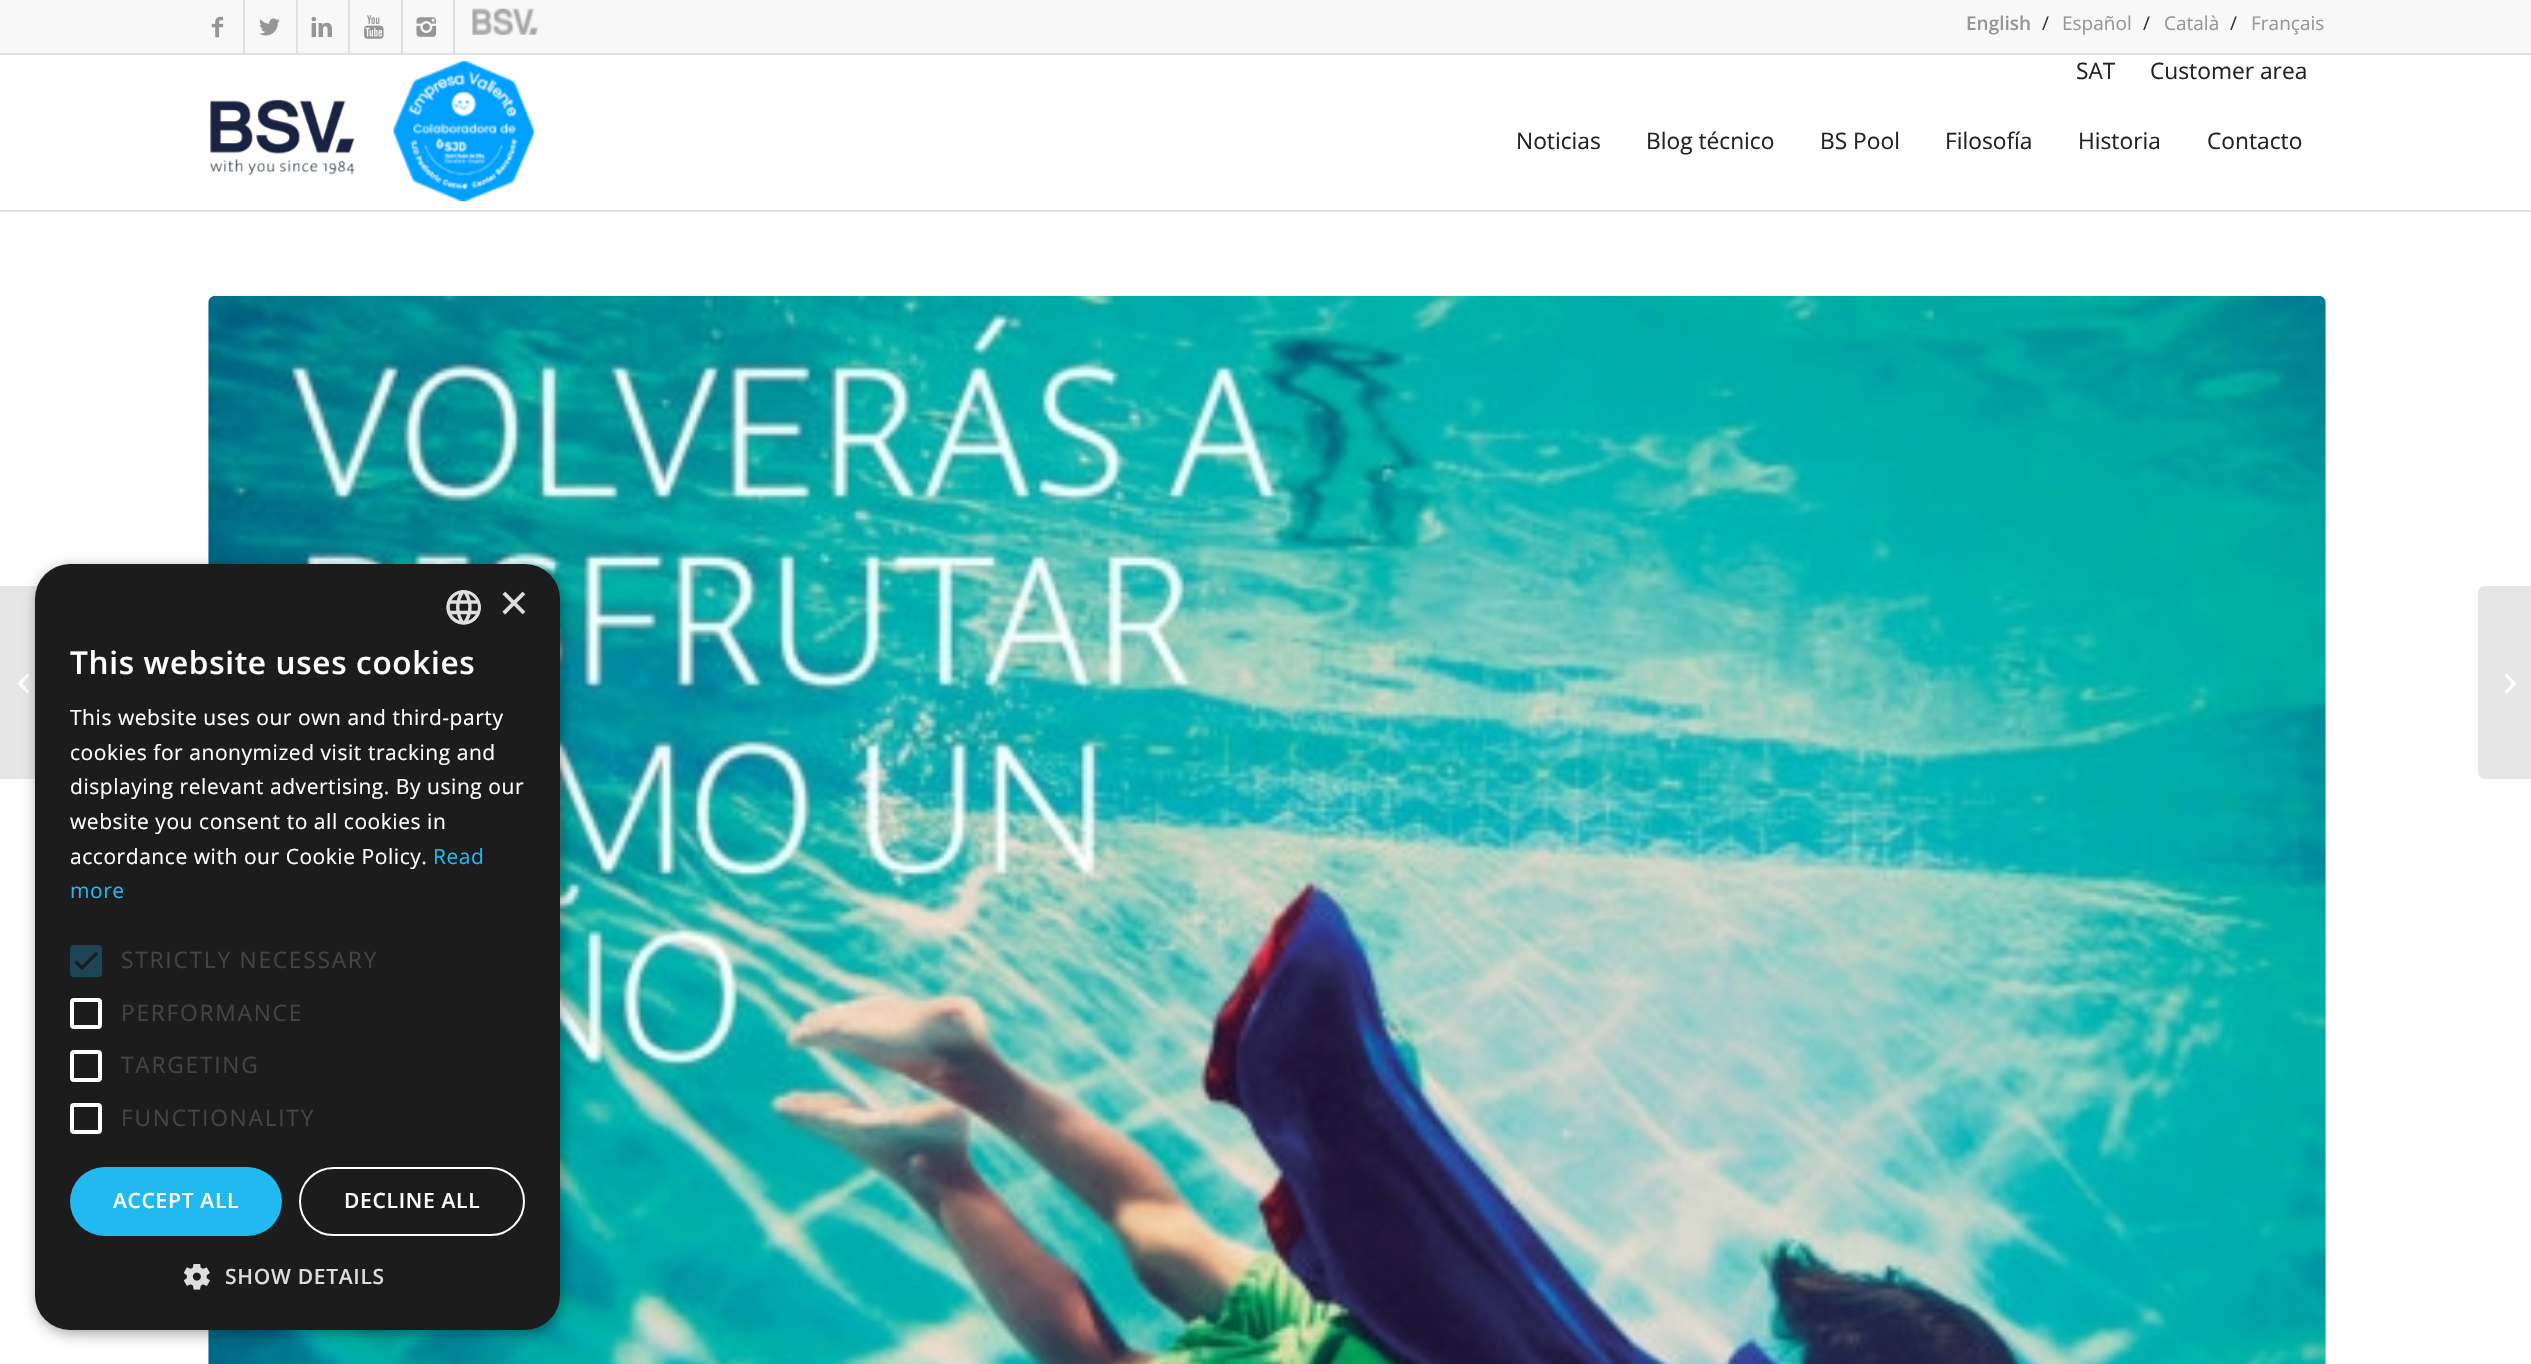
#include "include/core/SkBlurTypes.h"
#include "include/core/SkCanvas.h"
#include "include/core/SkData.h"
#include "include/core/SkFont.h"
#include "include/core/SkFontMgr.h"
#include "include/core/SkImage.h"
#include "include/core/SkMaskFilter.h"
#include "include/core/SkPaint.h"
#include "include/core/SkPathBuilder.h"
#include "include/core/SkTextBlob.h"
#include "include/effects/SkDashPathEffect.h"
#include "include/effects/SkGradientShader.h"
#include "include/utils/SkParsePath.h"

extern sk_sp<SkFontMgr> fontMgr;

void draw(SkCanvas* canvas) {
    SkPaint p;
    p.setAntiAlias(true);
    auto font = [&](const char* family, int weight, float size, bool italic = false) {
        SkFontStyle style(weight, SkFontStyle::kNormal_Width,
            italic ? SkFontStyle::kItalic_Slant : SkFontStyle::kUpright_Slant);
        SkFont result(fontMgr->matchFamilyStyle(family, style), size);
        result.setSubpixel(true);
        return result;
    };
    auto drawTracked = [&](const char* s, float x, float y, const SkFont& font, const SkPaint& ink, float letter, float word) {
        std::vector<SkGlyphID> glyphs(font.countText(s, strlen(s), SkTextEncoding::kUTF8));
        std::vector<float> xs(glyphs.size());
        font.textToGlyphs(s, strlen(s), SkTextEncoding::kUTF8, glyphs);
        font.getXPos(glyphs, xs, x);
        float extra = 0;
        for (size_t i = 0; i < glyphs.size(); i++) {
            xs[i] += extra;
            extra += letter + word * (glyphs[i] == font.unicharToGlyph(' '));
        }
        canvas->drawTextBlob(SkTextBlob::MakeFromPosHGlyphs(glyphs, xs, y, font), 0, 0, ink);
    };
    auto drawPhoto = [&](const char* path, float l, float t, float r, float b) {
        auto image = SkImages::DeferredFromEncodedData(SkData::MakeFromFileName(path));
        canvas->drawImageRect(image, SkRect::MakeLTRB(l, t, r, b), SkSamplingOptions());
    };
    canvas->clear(0xFFFFFFFF);
    {
        const struct { float l, t, r, b; SkColor color; } items[] = {
            {0, 0, 2531, 53, 0xFFF8F8F8},
            {0, 53, 2531, 55, 0xFFE1E1E1},
            {243, 0, 245, 53, 0xFFE1E1E1},
        };
        for (auto [l, t, r, b, color] : items) {
            p.setColor(color);
            canvas->drawRect(SkRect::MakeLTRB(l, t, r, b), p);
        }
    }
    drawPhoto("media/1.png", 211, 16, 224, 38);
    canvas->drawRect(SkRect::MakeLTRB(296, 0, 298, 53), p);
    drawPhoto("media/2.png", 259, 18, 280, 36);
    canvas->drawRect(SkRect::MakeLTRB(348, 0, 350, 53), p);
    drawPhoto("media/3.png", 311, 17, 332, 38);
    canvas->drawRect(SkRect::MakeLTRB(401, 0, 403, 53), p);
    drawPhoto("media/4.png", 364, 15, 384, 39);
    canvas->drawRect(SkRect::MakeLTRB(453, 0, 455, 53), p);
    drawPhoto("media/5.png", 416, 17, 437, 37);
    drawPhoto("media/6.png", 472, 8, 538, 35);
    auto font1 = font("Open Sans", 600, 19);
    p.setColor(0xFF969696);
    canvas->drawString("English", 1966, 30, font1, p);
    auto font2 = font("Open Sans", 400, 19);
    p.setColor(0xFF333333);
    canvas->drawString("/", 2042, 30, font2, p);
    p.setColor(0xFF969696);
    canvas->drawString("Español", 2062, 30, font2, p);
    p.setColor(0xFF333333);
    canvas->drawString("/", 2143, 30, font2, p);
    p.setColor(0xFF969696);
    canvas->drawString("Català", 2164, 30, font2, p);
    p.setColor(0xFF333333);
    canvas->drawString("/", 2230, 30, font2, p);
    p.setColor(0xFF969696);
    canvas->drawString("Français", 2251, 30, font2, p);
    p.setColor(0xFFE1E1E1);
    canvas->drawRect(SkRect::MakeLTRB(0, 210, 2531, 212), p);
    auto font3 = font("Open Sans", 400, 22.75f);
    p.setColor(0xFF222222);
    canvas->drawString("SAT", 2076, 79, font3, p);
    canvas->drawString("Customer area", 2150, 79, font3, p);
    drawPhoto("media/7.png", 210, 99, 355, 176);
    drawPhoto("media/8.png", 393, 61, 535, 202);
    {
        const struct { const char* s; float x, y; } items[] = {
            {"Noticias", 1516, 149},
            {"Blog técnico", 1646, 149},
            {"BS Pool", 1820, 149},
            {"Filosofía", 1945, 149},
            {"Historia", 2078, 149},
            {"Contacto", 2207, 149},
        };
        for (auto [s, x, y] : items) {
            canvas->drawString(s, x, y, font3, p);
        }
    }
    p.setColor(0xFFE6E6E6);
    canvas->drawRect(SkRect::MakeLTRB(0, 586, 38, 779), p);
    drawPhoto("media/9.png", 18, 673, 29, 694);
    drawPhoto("media/10.png", 208, 295, 2326, 1364);
    canvas->drawPath(SkPathBuilder().moveTo(2485, 586).lineTo(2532, 586).lineTo(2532, 779).lineTo(2485, 779).cubicTo(2481, 779, 2478, 776, 2478, 772).lineTo(2478, 593).cubicTo(2478, 589, 2481, 586, 2485, 586).close().detach(), p);
    drawPhoto("media/11.png", 2505, 673, 2516, 694);
    p.setColor(0x59000000);
    p.setMaskFilter(SkMaskFilter::MakeBlur(kNormal_SkBlurStyle, 7));
    canvas->drawRoundRect(SkRect::MakeLTRB(37, 567, 562, 1334), 35, 35, p);
    p.setMaskFilter(nullptr);
    p.setColor(0xFF1C1C1C);
    canvas->drawRoundRect(SkRect::MakeLTRB(35, 564, 560, 1330), 35, 35, p);
    drawPhoto("media/12.png", 446, 590, 481, 625);
    auto font4 = font("Liberation Sans", 400, 51);
    p.setColor(0xFFDDDDDD);
    canvas->drawString("×", 499, 620, font4, p);
    auto font5 = font("Open Sans", 600, 31.5f);
    p.setColor(0xFFFFFFFF);
    drawTracked("This website uses cookies", 70, 674, font5, p, 0.7f, 0);
    auto font6 = font("Open Sans", 400, 21);
    {
        const struct { const char* s; float x, y; } items[] = {
            {"This website uses our own and third-party", 70, 725},
            {"cookies for anonymized visit tracking and", 70, 760},
            {"displaying relevant advertising. By using our", 70, 794},
            {"website you consent to all cookies in", 70, 829},
            {"accordance with our Cookie Policy.", 70, 864},
        };
        for (auto [s, x, y] : items) {
            drawTracked(s, x, y, font6, p, 0.55f, 0);
        }
    }
    p.setColor(0xFF22B8F0);
    drawTracked("Read", 433, 864, font6, p, 0.55f, 0);
    drawTracked("more", 70, 898, font6, p, 0.55f, 0);
    p.setColor(0xFF1E4553);
    canvas->drawRoundRect(SkRect::MakeLTRB(70, 945, 102, 977), 4, 4, p);
    p.setStyle(SkPaint::kStroke_Style);
    p.setStrokeWidth(3.2f);
    p.setColor(0xFF1C1C1C);
    canvas->drawPath(SkPathBuilder().moveTo(75.5f, 961.5f).lineTo(82, 968).lineTo(97, 953).detach(), p);
    p.setStyle(SkPaint::kFill_Style);
    p.setColor(0xFF444444);
    drawTracked("STRICTLY NECESSARY", 121, 968, font3, p, 1.75f, 0);
    p.setStyle(SkPaint::kStroke_Style);
    p.setStrokeWidth(4);
    p.setColor(0xFFFFFFFF);
    canvas->drawRoundRect(SkRect::MakeLTRB(72, 1000, 100, 1027), 2, 2, p);
    p.setStyle(SkPaint::kFill_Style);
    p.setColor(0xFF444444);
    drawTracked("PERFORMANCE", 121, 1021, font3, p, 1.75f, 0);
    p.setStyle(SkPaint::kStroke_Style);
    p.setColor(0xFFFFFFFF);
    canvas->drawRoundRect(SkRect::MakeLTRB(72, 1052, 100, 1080), 2, 2, p);
    p.setStyle(SkPaint::kFill_Style);
    p.setColor(0xFF444444);
    drawTracked("TARGETING", 121, 1073, font3, p, 1.75f, 0);
    p.setStyle(SkPaint::kStroke_Style);
    p.setColor(0xFFFFFFFF);
    canvas->drawRoundRect(SkRect::MakeLTRB(72, 1105, 100, 1132), 2, 2, p);
    p.setStyle(SkPaint::kFill_Style);
    p.setColor(0xFF444444);
    drawTracked("FUNCTIONALITY", 121, 1126, font3, p, 1.75f, 0);
    p.setColor(0xFF22B8F0);
    canvas->drawRoundRect(SkRect::MakeLTRB(70, 1167, 282, 1236), 34.5f, 34.5f, p);
    auto font7 = font("Open Sans", 600, 21);
    p.setColor(0xFFFFFFFF);
    drawTracked("ACCEPT ALL", 113, 1208, font7, p, 0.7f, 0);
    p.setStyle(SkPaint::kStroke_Style);
    p.setStrokeWidth(2);
    canvas->drawRoundRect(SkRect::MakeLTRB(300, 1168, 524, 1235), 33.5f, 33.5f, p);
    p.setStyle(SkPaint::kFill_Style);
    drawTracked("DECLINE ALL", 344, 1208, font7, p, 0.7f, 0);
    drawPhoto("media/13.png", 184, 1264, 210, 1290);
    p.setColor(0xFFDDDDDD);
    drawTracked("SHOW DETAILS", 225, 1284, font7, p, 0.7f, 0);
}
